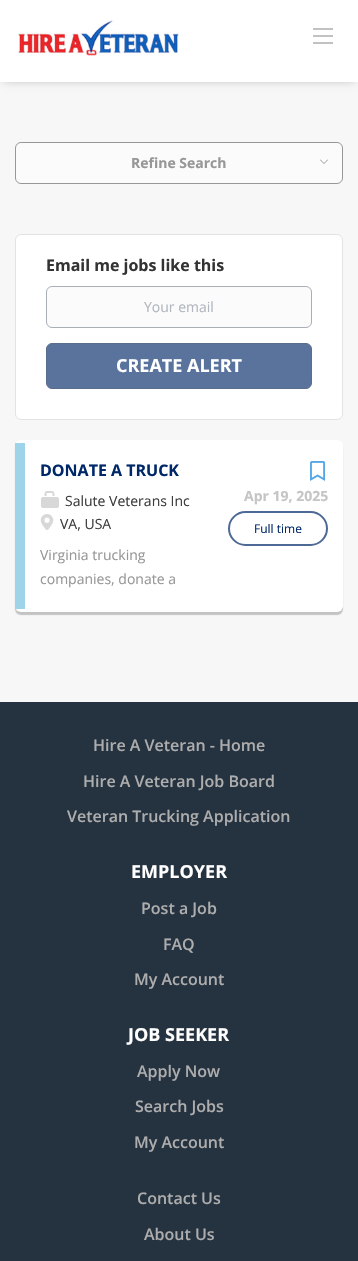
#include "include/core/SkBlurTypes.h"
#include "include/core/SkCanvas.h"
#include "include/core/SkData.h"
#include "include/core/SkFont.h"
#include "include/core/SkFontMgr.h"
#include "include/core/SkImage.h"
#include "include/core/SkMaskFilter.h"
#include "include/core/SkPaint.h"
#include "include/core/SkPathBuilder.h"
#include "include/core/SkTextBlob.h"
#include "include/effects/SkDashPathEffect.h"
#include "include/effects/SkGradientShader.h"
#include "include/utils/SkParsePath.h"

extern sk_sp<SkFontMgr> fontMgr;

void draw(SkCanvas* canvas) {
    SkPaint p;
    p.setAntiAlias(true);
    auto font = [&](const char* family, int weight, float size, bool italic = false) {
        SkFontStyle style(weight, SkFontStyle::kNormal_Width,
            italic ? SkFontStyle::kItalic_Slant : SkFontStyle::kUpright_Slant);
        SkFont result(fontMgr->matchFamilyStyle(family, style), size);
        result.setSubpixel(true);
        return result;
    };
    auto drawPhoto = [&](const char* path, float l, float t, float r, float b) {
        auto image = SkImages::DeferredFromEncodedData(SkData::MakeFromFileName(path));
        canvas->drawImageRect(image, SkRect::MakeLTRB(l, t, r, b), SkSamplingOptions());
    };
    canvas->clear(0xFFF7F7F7);
    p.setColor(0x4D000000);
    p.setMaskFilter(SkMaskFilter::MakeBlur(kNormal_SkBlurStyle, 4.5f));
    canvas->drawRect(SkRect::MakeLTRB(4, 6, 354, 80), p);
    p.setMaskFilter(nullptr);
    p.setColor(0xFFFFFFFF);
    canvas->drawRect(SkRect::MakeLTRB(0, 0, 358, 82), p);
    drawPhoto("media/1.png", 18, 20, 179, 56);
    {
        const struct { float l, t, r, b; SkColor color; } items[] = {
            {313, 35, 333, 37, 0xFFC2C2C2},
            {313, 28, 333, 30, 0xFFC2C2C2},
            {313, 42, 333, 44, 0xFFC2C2C2},
        };
        for (auto [l, t, r, b, color] : items) {
            p.setColor(color);
            canvas->drawRect(SkRect::MakeLTRB(l, t, r, b), p);
        }
    }
    p.setColor(0xFFFBFBFB);
    canvas->drawRoundRect(SkRect::MakeLTRB(15.5f, 142.5f, 342.5f, 183.5f), 5.5f, 5.5f, p);
    p.setStyle(SkPaint::kStroke_Style);
    p.setStrokeWidth(1);
    p.setColor(0xFF979797);
    canvas->drawRoundRect(SkRect::MakeLTRB(15.5f, 142.5f, 342.5f, 183.5f), 5.5f, 5.5f, p);
    auto font1 = font("Open Sans", 700, 14);
    p.setStyle(SkPaint::kFill_Style);
    canvas->drawString("Refine Search", 131, 168, font1, p);
    canvas->drawPath(SkPathBuilder().moveTo(328, 160).lineTo(324, 164).lineTo(324, 163).lineTo(327.5f, 159.5f).close().moveTo(324, 164).lineTo(320, 160).lineTo(320.5f, 159.5f).lineTo(324, 163).close().detach(), p);
    p.setColor(0xFFFFFFFF);
    canvas->drawRoundRect(SkRect::MakeLTRB(15.5f, 234.5f, 342.5f, 419.5f), 5.5f, 5.5f, p);
    p.setStyle(SkPaint::kStroke_Style);
    p.setColor(0xFFE3E3E3);
    canvas->drawRoundRect(SkRect::MakeLTRB(15.5f, 234.5f, 342.5f, 419.5f), 5.5f, 5.5f, p);
    auto font2 = font("Open Sans", 700, 16);
    p.setStyle(SkPaint::kFill_Style);
    p.setColor(0xFF333333);
    canvas->drawString("Email me jobs like this", 46, 271, font2, p);
    p.setColor(0xFFFBFBFB);
    canvas->drawRoundRect(SkRect::MakeLTRB(46.5f, 286.5f, 311.5f, 327.5f), 5.5f, 5.5f, p);
    p.setStyle(SkPaint::kStroke_Style);
    p.setColor(0xFFA8AFB7);
    canvas->drawRoundRect(SkRect::MakeLTRB(46.5f, 286.5f, 311.5f, 327.5f), 5.5f, 5.5f, p);
    auto font3 = font("Open Sans", 400, 14);
    p.setStyle(SkPaint::kFill_Style);
    p.setColor(0xFFB1B7BF);
    canvas->drawString("Your email", 144, 312, font3, p);
    p.setColor(0xFF59739D);
    canvas->drawRoundRect(SkRect::MakeLTRB(46.5f, 343.5f, 311.5f, 388.5f), 5.5f, 5.5f, p);
    p.setStyle(SkPaint::kStroke_Style);
    p.setColor(0xFF596D8D);
    canvas->drawRoundRect(SkRect::MakeLTRB(46.5f, 343.5f, 311.5f, 388.5f), 5.5f, 5.5f, p);
    auto font4 = font("Open Sans", 700, 18);
    p.setStyle(SkPaint::kFill_Style);
    p.setColor(0xFFFFFFFF);
    canvas->drawString("CREATE ALERT", 116, 372, font4, p);
    p.setColor(0xFFC3C3C3);
    p.setMaskFilter(SkMaskFilter::MakeBlur(kNormal_SkBlurStyle, 0.5f));
    canvas->drawRoundRect(SkRect::MakeLTRB(15, 443, 343, 615), 6, 6, p);
    p.setMaskFilter(nullptr);
    p.setColor(0xFFFFFFFF);
    canvas->drawRoundRect(SkRect::MakeLTRB(15, 440, 343, 612), 6, 6, p);
    p.setColor(0xFF9DD4E9);
    canvas->drawRect(SkRect::MakeLTRB(15, 443, 25, 609), p);
    p.setColor(0xFF002868);
    canvas->drawString("DONATE A TRUCK", 40, 476, font2, p);
    drawPhoto("media/2.png", 41, 491, 59, 508);
    p.setColor(0xFF3E3E3E);
    canvas->drawString("Salute Veterans Inc", 65, 506, font3, p);
    drawPhoto("media/3.png", 40, 514, 54, 530);
    canvas->drawString("VA, USA", 60, 529, font3, p);
    drawPhoto("media/4.png", 310, 461, 326, 481);
    p.setColor(0xFFC5C5C5);
    canvas->drawString("Apr 19, 2025", 244, 501, font1, p);
    p.setStyle(SkPaint::kStroke_Style);
    p.setStrokeWidth(2);
    p.setColor(0xFF4D6995);
    canvas->drawRoundRect(SkRect::MakeLTRB(229, 512, 327, 545), 16.5f, 16.5f, p);
    auto font5 = font("Open Sans", 400, 12);
    p.setStyle(SkPaint::kFill_Style);
    p.setColor(0xFF002868);
    canvas->drawString("Full time", 254, 533, font5, p);
    p.setColor(0xFF979797);
    canvas->drawString("Virginia trucking", 40, 560, font3, p);
    canvas->drawString("companies, donate a", 40, 584, font3, p);
    p.setColor(0xFF25323F);
    canvas->drawRect(SkRect::MakeLTRB(0, 702, 358, 1261), p);
    auto font6 = font("Open Sans", 600, 16);
    p.setColor(0xFFADADAD);
    {
        const struct { const char* s; float x, y; } items[] = {
            {"Hire A Veteran - Home", 93, 751},
            {"Hire A Veteran Job Board", 83, 787},
            {"Veteran Trucking Application", 67, 822},
        };
        for (auto [s, x, y] : items) {
            canvas->drawString(s, x, y, font6, p);
        }
    }
    p.setColor(0xFFFFFFFF);
    canvas->drawString("EMPLOYER", 131, 878, font4, p);
    p.setColor(0xFFADADAD);
    {
        const struct { const char* s; float x, y; } items[] = {
            {"Post a Job", 141, 914},
            {"FAQ", 163, 950},
            {"My Account", 134, 985},
        };
        for (auto [s, x, y] : items) {
            canvas->drawString(s, x, y, font6, p);
        }
    }
    p.setColor(0xFFFFFFFF);
    canvas->drawString("JOB SEEKER", 128, 1041, font4, p);
    p.setColor(0xFFADADAD);
    {
        const struct { const char* s; float x, y; } items[] = {
            {"Apply Now", 137, 1077},
            {"Search Jobs", 135, 1112},
            {"My Account", 134, 1148},
            {"Contact Us", 137, 1204},
            {"About Us", 144, 1240},
        };
        for (auto [s, x, y] : items) {
            canvas->drawString(s, x, y, font6, p);
        }
    }
}
